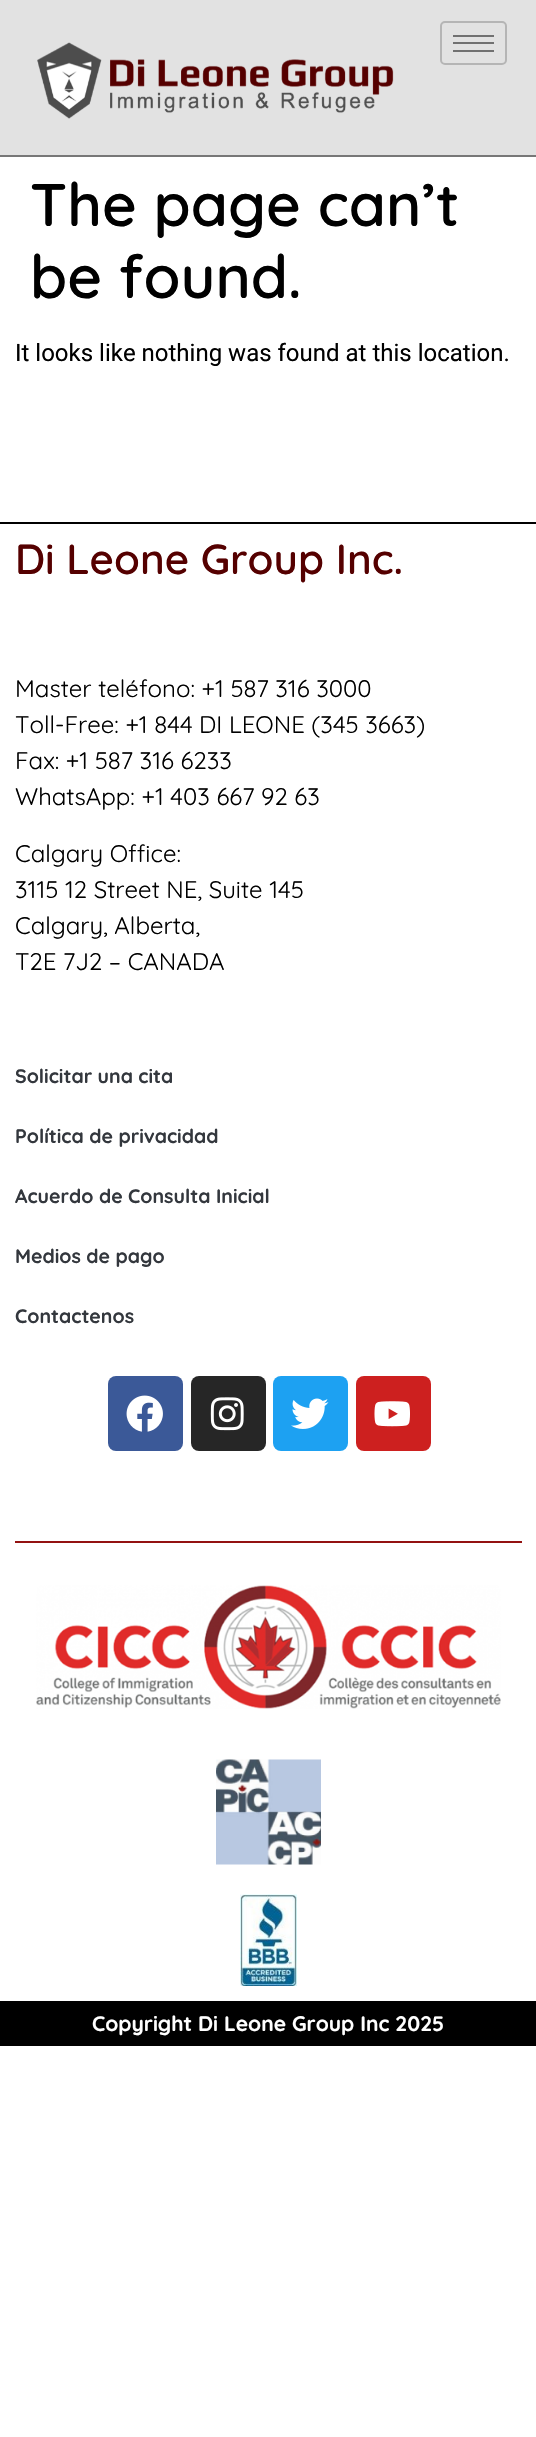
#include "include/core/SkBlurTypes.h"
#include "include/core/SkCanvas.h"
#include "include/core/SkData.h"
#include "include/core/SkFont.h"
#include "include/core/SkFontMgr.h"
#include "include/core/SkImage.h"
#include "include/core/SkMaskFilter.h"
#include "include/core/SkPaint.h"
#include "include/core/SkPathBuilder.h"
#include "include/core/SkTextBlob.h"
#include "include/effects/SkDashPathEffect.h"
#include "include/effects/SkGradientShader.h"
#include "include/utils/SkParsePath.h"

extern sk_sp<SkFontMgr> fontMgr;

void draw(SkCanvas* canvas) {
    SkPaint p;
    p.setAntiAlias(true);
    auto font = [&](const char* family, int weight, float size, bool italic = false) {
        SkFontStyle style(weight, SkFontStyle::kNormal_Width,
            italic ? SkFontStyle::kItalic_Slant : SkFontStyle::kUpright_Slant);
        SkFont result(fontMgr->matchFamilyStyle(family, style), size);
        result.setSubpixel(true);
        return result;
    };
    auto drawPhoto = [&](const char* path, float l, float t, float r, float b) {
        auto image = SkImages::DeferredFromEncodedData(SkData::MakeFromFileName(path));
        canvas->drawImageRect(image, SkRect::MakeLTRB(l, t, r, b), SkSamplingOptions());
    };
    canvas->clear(0xFFFFFFFF);
    p.setColor(0xFFE2E2E2);
    canvas->drawRect(SkRect::MakeLTRB(0, 0, 536, 155), p);
    p.setColor(0xFF777777);
    canvas->drawRect(SkRect::MakeLTRB(0, 155, 536, 157), p);
    drawPhoto("media/1.png", 37, 42, 394, 119);
    p.setStyle(SkPaint::kStroke_Style);
    p.setStrokeWidth(2);
    p.setColor(0xFFB5B5B5);
    canvas->drawRoundRect(SkRect::MakeLTRB(441, 22, 506, 64), 4, 4, p);
    p.setStyle(SkPaint::kFill_Style);
    {
        const struct { float l, t, r, b; SkColor color; } items[] = {
            {453, 35, 494, 37, 0xFF717171},
            {453, 42, 494, 44, 0xFF717171},
            {453, 50, 494, 52, 0xFF717171},
        };
        for (auto [l, t, r, b, color] : items) {
            p.setColor(color);
            canvas->drawRect(SkRect::MakeLTRB(l, t, r, b), p);
        }
    }
    auto font1 = font("Quicksand", 600, 60);
    p.setColor(0xFF000000);
    canvas->drawString("The page can’t", 30, 226, font1, p);
    canvas->drawString("be found.", 30, 298, font1, p);
    auto font2 = font("Roboto", 400, 24);
    canvas->drawString("It looks like nothing was found at this location.", 15, 361, font2, p);
    canvas->drawRect(SkRect::MakeLTRB(0, 522, 536, 524), p);
    auto font3 = font("Quicksand", 600, 42);
    p.setColor(0xFF550000);
    canvas->drawString("Di Leone Group Inc.", 15, 574, font3, p);
    auto font4 = font("Quicksand", 400, 24);
    p.setColor(0xFF000000);
    {
        const struct { const char* s; float x, y; } items[] = {
            {"Master teléfono: +1 587 316 3000", 15, 697},
            {"Toll-Free: +1 844 DI LEONE (345 3663)", 15, 733},
            {"Fax: +1 587 316 6233", 15, 769},
            {"WhatsApp: +1 403 667 92 63", 15, 805},
            {"Calgary Office:", 15, 862},
            {"3115 12 Street NE, Suite 145", 15, 898},
            {"Calgary, Alberta,", 15, 934},
            {"T2E 7J2 – CANADA", 15, 970},
        };
        for (auto [s, x, y] : items) {
            canvas->drawString(s, x, y, font4, p);
        }
    }
    auto font5 = font("Quicksand", 700, 19.5f);
    p.setColor(0xFF33373D);
    {
        const struct { const char* s; float x, y; } items[] = {
            {"Solicitar una cita", 15, 1083},
            {"Política de privacidad", 15, 1143},
            {"Acuerdo de Consulta Inicial", 15, 1203},
            {"Medios de pago", 15, 1263},
            {"Contactenos", 15, 1323},
        };
        for (auto [s, x, y] : items) {
            canvas->drawString(s, x, y, font5, p);
        }
    }
    p.setColor(0xFF3B5998);
    canvas->drawRoundRect(SkRect::MakeLTRB(108, 1376, 183, 1451), 8, 8, p);
    drawPhoto("media/2.png", 126, 1395, 163, 1432);
    p.setColor(0xFF262626);
    canvas->drawRoundRect(SkRect::MakeLTRB(191, 1376, 266, 1451), 8, 8, p);
    drawPhoto("media/3.png", 210, 1397, 244, 1431);
    p.setColor(0xFF1DA1F2);
    canvas->drawRoundRect(SkRect::MakeLTRB(273, 1376, 348, 1451), 8, 8, p);
    drawPhoto("media/4.png", 291, 1398, 329, 1429);
    p.setColor(0xFFCD201F);
    canvas->drawRoundRect(SkRect::MakeLTRB(356, 1376, 431, 1451), 8, 8, p);
    drawPhoto("media/5.png", 374, 1401, 410, 1427);
    p.setColor(0xFF931211);
    canvas->drawRect(SkRect::MakeLTRB(15, 1541, 522, 1543), p);
    drawPhoto("media/6.png", 36, 1585, 501, 1709);
    drawPhoto("media/7.png", 216, 1759, 321, 1865);
    drawPhoto("media/8.png", 240, 1894, 297, 1986);
    p.setColor(0xFF000000);
    canvas->drawRect(SkRect::MakeLTRB(0, 2001, 536, 2046), p);
    auto font6 = font("Quicksand", 700, 21);
    p.setColor(0xFFFFFFFF);
    canvas->drawString("Copyright Di Leone Group Inc 2025", 92, 2031, font6, p);
}
